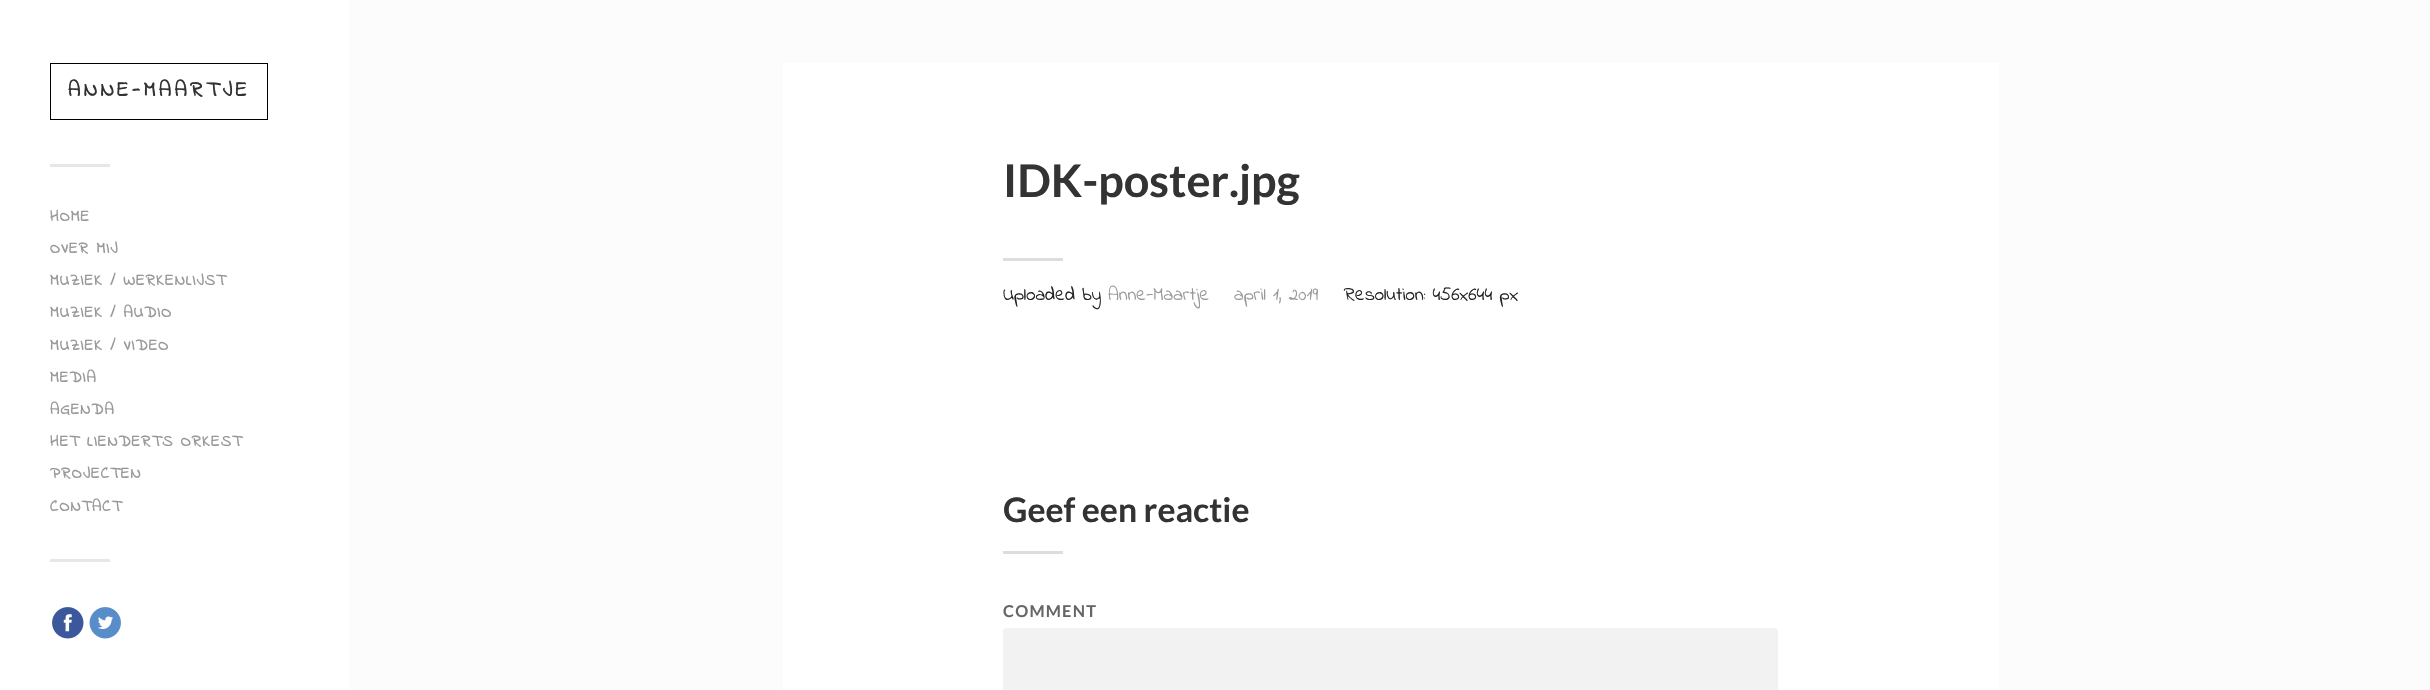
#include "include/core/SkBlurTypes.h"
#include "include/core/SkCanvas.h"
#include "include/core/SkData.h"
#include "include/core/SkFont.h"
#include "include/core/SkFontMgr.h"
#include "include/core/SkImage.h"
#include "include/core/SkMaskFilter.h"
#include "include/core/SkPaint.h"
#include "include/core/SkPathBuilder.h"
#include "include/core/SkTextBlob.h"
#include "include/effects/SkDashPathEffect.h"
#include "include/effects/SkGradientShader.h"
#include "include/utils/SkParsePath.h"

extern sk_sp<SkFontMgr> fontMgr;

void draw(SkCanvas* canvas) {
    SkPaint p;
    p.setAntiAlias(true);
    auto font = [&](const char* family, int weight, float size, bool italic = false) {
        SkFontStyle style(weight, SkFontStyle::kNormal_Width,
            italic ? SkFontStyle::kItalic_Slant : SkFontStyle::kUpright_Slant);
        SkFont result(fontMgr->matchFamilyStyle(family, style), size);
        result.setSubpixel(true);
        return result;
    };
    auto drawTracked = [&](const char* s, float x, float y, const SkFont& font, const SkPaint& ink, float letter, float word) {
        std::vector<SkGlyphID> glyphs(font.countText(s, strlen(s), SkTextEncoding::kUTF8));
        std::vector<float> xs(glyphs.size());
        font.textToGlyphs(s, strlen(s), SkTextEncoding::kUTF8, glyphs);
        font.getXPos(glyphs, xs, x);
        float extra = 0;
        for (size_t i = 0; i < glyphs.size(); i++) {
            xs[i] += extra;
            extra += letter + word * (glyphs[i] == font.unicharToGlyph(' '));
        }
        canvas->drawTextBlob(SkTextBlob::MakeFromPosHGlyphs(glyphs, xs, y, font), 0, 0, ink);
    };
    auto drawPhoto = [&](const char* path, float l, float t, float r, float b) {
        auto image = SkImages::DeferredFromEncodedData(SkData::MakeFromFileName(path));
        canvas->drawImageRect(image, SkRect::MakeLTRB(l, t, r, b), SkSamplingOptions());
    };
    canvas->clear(0xFFFCFCFC);
    p.setColor(0xFFFFFFFF);
    canvas->drawRect(SkRect::MakeLTRB(0, 0, 350, 690), p);
    p.setStyle(SkPaint::kStroke_Style);
    p.setStrokeWidth(1);
    p.setColor(0xFF000000);
    canvas->drawRect(SkRect::MakeLTRB(50.5f, 63.5f, 267.5f, 119.5f), p);
    auto font1 = font("Indie Flower", 700, 21.25f);
    p.setStyle(SkPaint::kFill_Style);
    p.setColor(0xFF333333);
    drawTracked("ANNE-MAARTJE", 68, 96, font1, p, 3.75f, 0);
    p.setColor(0xFFE7E7E7);
    canvas->drawRect(SkRect::MakeLTRB(50, 164, 110, 167), p);
    auto font2 = font("Indie Flower", 700, 16);
    p.setColor(0xFF999999);
    {
        const struct { const char* s; float x, y; } items[] = {
            {"HOME", 50, 221},
            {"OVER MIJ", 50, 253},
            {"MUZIEK / WERKENLIJST", 50, 285},
            {"MUZIEK / AUDIO", 50, 317},
            {"MUZIEK / VIDEO", 50, 350},
            {"MEDIA", 50, 382},
            {"AGENDA", 50, 414},
            {"HET LIENDERTS ORKEST", 50, 446},
            {"PROJECTEN", 50, 478},
            {"CONTACT", 50, 511},
        };
        for (auto [s, x, y] : items) {
            drawTracked(s, x, y, font2, p, 1.25f, 0);
        }
    }
    p.setColor(0xFFE7E7E7);
    canvas->drawRect(SkRect::MakeLTRB(50, 559, 110, 562), p);
    drawPhoto("media/1.png", 52, 607, 84, 639);
    drawPhoto("media/2.png", 89, 607, 121, 639);
    p.setColor(0xFFFFFFFF);
    canvas->drawRect(SkRect::MakeLTRB(783, 63, 1999, 690), p);
    auto font3 = font("Lato", 700, 45);
    p.setColor(0xFF333333);
    canvas->drawString("IDK-poster.jpg", 1003, 197, font3, p);
    p.setColor(0xFFDDDDDD);
    canvas->drawRect(SkRect::MakeLTRB(1003, 258, 1063, 261), p);
    auto font4 = font("Indie Flower", 400, 19.1f);
    p.setColor(0xFF222222);
    canvas->drawString("Uploaded by", 1003, 300, font4, p);
    p.setColor(0xFF999999);
    canvas->drawString("Anne-Maartje", 1108, 300, font4, p);
    canvas->drawString("april 1, 2019", 1234, 300, font4, p);
    p.setColor(0xFF222222);
    canvas->drawString("Resolution: 456x644 px", 1344, 300, font4, p);
    auto font5 = font("Lato", 700, 33.75f);
    p.setColor(0xFF333333);
    canvas->drawString("Geef een reactie", 1003, 522, font5, p);
    p.setColor(0xFFDDDDDD);
    canvas->drawRect(SkRect::MakeLTRB(1003, 551, 1063, 554), p);
    auto font6 = font("Lato", 700, 16.25f);
    p.setColor(0xFF666666);
    drawTracked("COMMENT", 1003, 617, font6, p, 1.25f, 0);
    p.setColor(0xFFF2F2F2);
    canvas->drawRoundRect(SkRect::MakeLTRB(1003, 628, 1778, 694), 4, 4, p);
}
